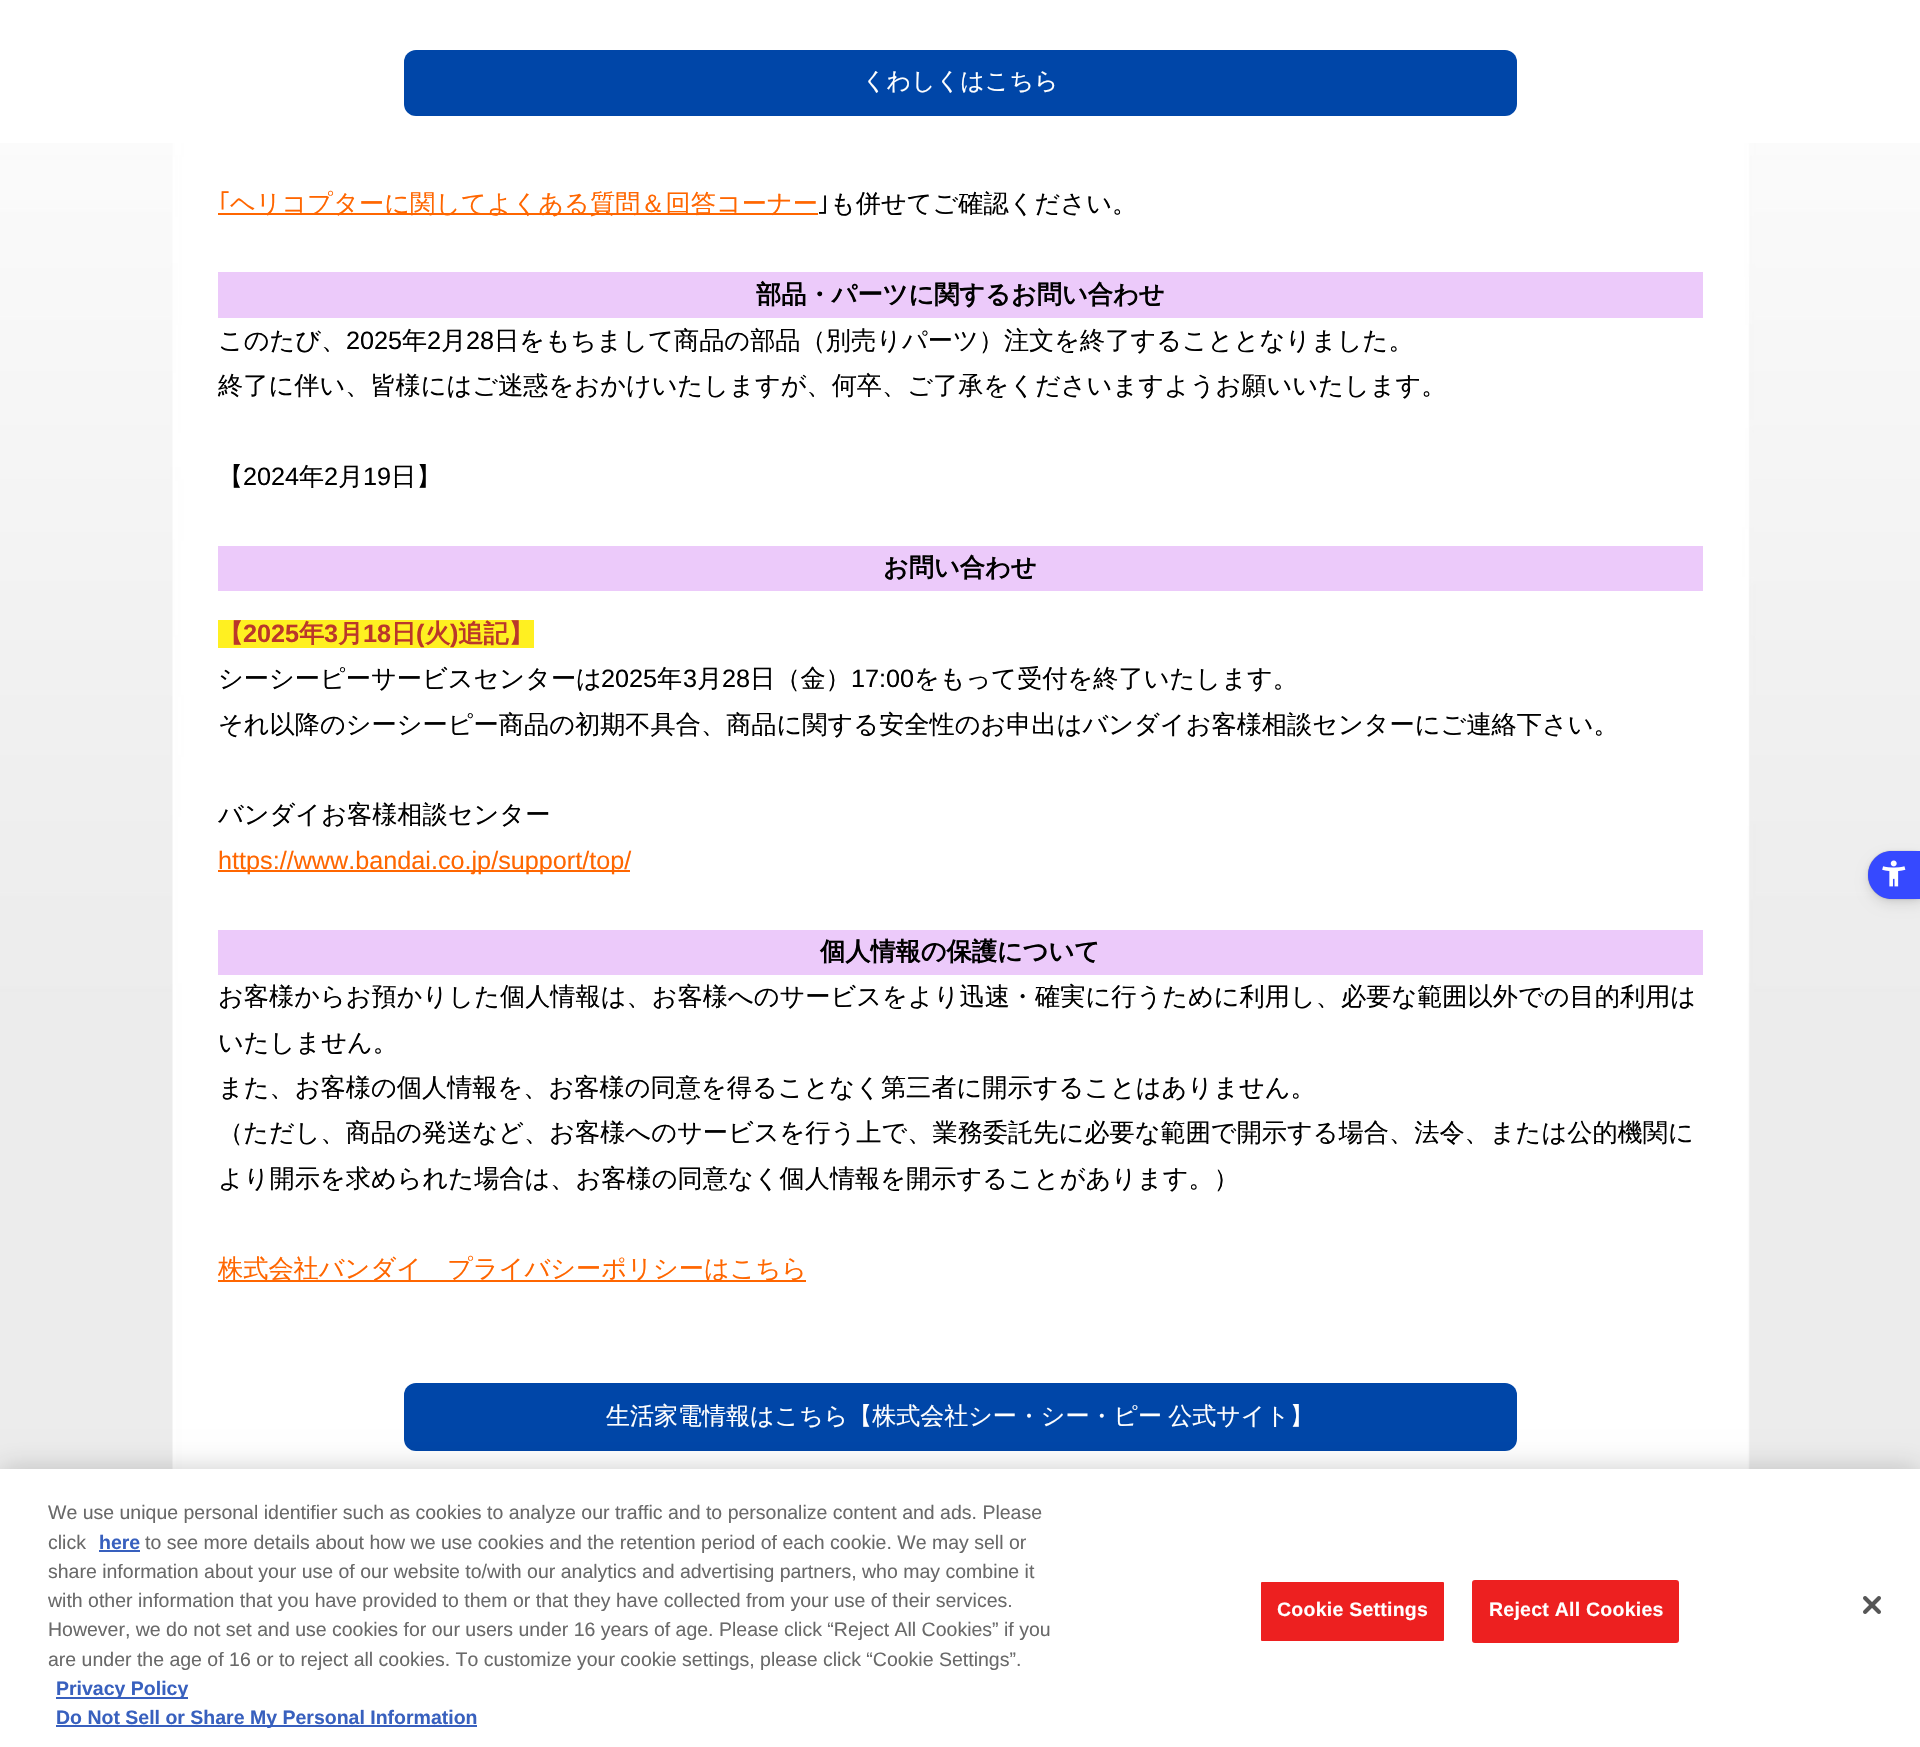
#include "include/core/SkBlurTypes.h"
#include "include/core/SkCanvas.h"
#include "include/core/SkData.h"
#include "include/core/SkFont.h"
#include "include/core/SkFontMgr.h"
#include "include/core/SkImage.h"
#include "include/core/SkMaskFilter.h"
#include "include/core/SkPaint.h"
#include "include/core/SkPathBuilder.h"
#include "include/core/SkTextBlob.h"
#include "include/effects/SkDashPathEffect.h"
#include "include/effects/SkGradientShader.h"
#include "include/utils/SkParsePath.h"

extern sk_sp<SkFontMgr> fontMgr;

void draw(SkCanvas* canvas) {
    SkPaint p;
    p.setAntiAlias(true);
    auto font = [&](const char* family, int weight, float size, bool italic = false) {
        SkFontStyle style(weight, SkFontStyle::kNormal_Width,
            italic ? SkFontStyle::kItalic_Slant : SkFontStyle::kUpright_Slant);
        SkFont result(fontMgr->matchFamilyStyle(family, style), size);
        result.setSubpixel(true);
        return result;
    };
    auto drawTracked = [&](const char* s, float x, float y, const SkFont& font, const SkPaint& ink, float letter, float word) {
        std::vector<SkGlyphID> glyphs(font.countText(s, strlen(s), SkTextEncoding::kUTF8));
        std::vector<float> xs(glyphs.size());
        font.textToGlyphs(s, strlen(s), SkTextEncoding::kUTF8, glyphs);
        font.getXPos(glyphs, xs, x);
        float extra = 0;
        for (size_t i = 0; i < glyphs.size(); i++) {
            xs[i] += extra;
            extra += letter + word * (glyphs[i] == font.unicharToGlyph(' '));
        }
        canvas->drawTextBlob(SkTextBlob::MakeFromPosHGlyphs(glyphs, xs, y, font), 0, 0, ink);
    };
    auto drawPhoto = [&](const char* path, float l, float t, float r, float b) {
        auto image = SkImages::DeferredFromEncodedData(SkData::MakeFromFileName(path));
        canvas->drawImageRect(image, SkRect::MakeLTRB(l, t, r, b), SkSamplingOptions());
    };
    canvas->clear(0xFFFFFFFF);
    drawPhoto("media/1.png", 0, 143, 1920, 1469);
    p.setColor(0xFF0046A8);
    canvas->drawRoundRect(SkRect::MakeLTRB(404, 50, 1517, 116), 12, 12, p);
    auto font1 = font("WenQuanYi Zen Hei", 500, 24);
    p.setColor(0xFFFFFFFF);
    canvas->drawString("くわしくはこちら", 862, 89, font1, p);
    auto font2 = font("IPAPGothic", 400, 25.2f);
    p.setColor(0xFFFF6600);
    canvas->drawString("｢", 218, 212, font2, p);
    canvas->drawRect(SkRect::MakeLTRB(218, 213, 818, 215), p);
    auto font3 = font("WenQuanYi Zen Hei", 500, 25.2f);
    canvas->drawString("ヘリコプターに関してよくある質問＆回答コーナー", 230, 212, font3, p);
    p.setColor(0xFF000000);
    canvas->drawString("｣", 817, 212, font2, p);
    canvas->drawString("も併せてご確認ください。", 830, 212, font3, p);
    p.setColor(0xFFECCAFA);
    canvas->drawRect(SkRect::MakeLTRB(218, 272, 1703, 318), p);
    auto font4 = font("WenQuanYi Zen Hei", 700, 25.2f);
    p.setColor(0xFF000000);
    canvas->drawString("部品・パーツに関するお問い合わせ", 756, 303, font4, p);
    canvas->drawString("このたび、", 218, 349, font3, p);
    auto font5 = font("Liberation Sans", 400, 25.2f);
    canvas->drawString("2025", 346, 349, font5, p);
    canvas->drawString("年", 402, 349, font3, p);
    canvas->drawString("2", 427, 349, font5, p);
    canvas->drawString("月", 441, 349, font3, p);
    canvas->drawString("28", 466, 349, font5, p);
    {
        const struct { const char* s; float x, y; } items[] = {
            {"日をもちまして商品の部品（別売りパーツ）注文を終了することとなりました。", 494, 349},
            {"終了に伴い、皆様にはご迷惑をおかけいたしますが、何卒、ご了承をくださいますようお願いいたします。", 218, 394},
            {"【", 218, 485},
        };
        for (auto [s, x, y] : items) {
            canvas->drawString(s, x, y, font3, p);
        }
    }
    canvas->drawString("2024", 243, 485, font5, p);
    canvas->drawString("年", 299, 485, font3, p);
    canvas->drawString("2", 324, 485, font5, p);
    canvas->drawString("月", 338, 485, font3, p);
    canvas->drawString("19", 363, 485, font5, p);
    canvas->drawString("日】", 391, 485, font3, p);
    p.setColor(0xFFECCAFA);
    canvas->drawRect(SkRect::MakeLTRB(218, 546, 1703, 591), p);
    p.setColor(0xFF000000);
    canvas->drawString("お問い合わせ", 883, 576, font4, p);
    p.setColor(0xFFFFF021);
    canvas->drawRect(SkRect::MakeLTRB(218, 620, 534, 648), p);
    p.setColor(0xFFBA372A);
    canvas->drawString("【", 218, 642, font4, p);
    auto font6 = font("Liberation Sans", 700, 25.2f);
    canvas->drawString("2025", 243, 642, font6, p);
    canvas->drawString("年", 299, 642, font4, p);
    canvas->drawString("3", 324, 642, font6, p);
    canvas->drawString("月", 338, 642, font4, p);
    canvas->drawString("18", 363, 642, font6, p);
    canvas->drawString("日", 391, 642, font4, p);
    canvas->drawString("(", 416, 642, font6, p);
    canvas->drawString("火", 425, 642, font4, p);
    canvas->drawString(")", 450, 642, font6, p);
    canvas->drawString("追記】", 458, 642, font4, p);
    p.setColor(0xFF000000);
    canvas->drawString("シーシーピーサービスセンターは", 218, 687, font3, p);
    canvas->drawString("2025", 601, 687, font5, p);
    canvas->drawString("年", 657, 687, font3, p);
    canvas->drawString("3", 683, 687, font5, p);
    canvas->drawString("月", 697, 687, font3, p);
    canvas->drawString("28", 722, 687, font5, p);
    canvas->drawString("日（金）", 750, 687, font3, p);
    canvas->drawString("17:00", 851, 687, font5, p);
    {
        const struct { const char* s; float x, y; } items[] = {
            {"をもって受付を終了いたします。", 914, 687},
            {"それ以降のシーシーピー商品の初期不具合、商品に関する安全性のお申出はバンダイお客様相談センターにご連絡下さい。", 218, 733},
            {"バンダイお客様相談センター", 218, 823},
        };
        for (auto [s, x, y] : items) {
            canvas->drawString(s, x, y, font3, p);
        }
    }
    p.setColor(0xFFFF6600);
    canvas->drawRect(SkRect::MakeLTRB(218, 870, 630, 872), p);
    canvas->drawString("https://www.bandai.co.jp/support/top/", 218, 869, font5, p);
    p.setColor(0xFFECCAFA);
    canvas->drawRect(SkRect::MakeLTRB(218, 930, 1703, 975), p);
    p.setColor(0xFF000000);
    canvas->drawString("個人情報の保護について", 820, 960, font4, p);
    {
        const struct { const char* s; float x, y; } items[] = {
            {"お客様からお預かりした個人情報は、お客様へのサービスをより迅速・確実に行うために利用し、必要な範囲以外での目的利用は", 218, 1005},
            {"いたしません。", 218, 1051},
            {"また、お客様の個人情報を、お客様の同意を得ることなく第三者に開示することはありません。", 218, 1096},
            {"（ただし、商品の発送など、お客様へのサービスを行う上で、業務委託先に必要な範囲で開示する場合、法令、または公的機関に", 218, 1141},
            {"より開示を求められた場合は、お客様の同意なく個人情報を開示することがあります。）", 218, 1187},
        };
        for (auto [s, x, y] : items) {
            canvas->drawString(s, x, y, font3, p);
        }
    }
    p.setColor(0xFFFF6600);
    canvas->drawRect(SkRect::MakeLTRB(218, 1280, 806, 1282), p);
    canvas->drawString("株式会社バンダイ　プライバシーポリシーはこちら", 218, 1277, font3, p);
    p.setColor(0xFF0046A8);
    canvas->drawRoundRect(SkRect::MakeLTRB(404, 1383, 1517, 1451), 12, 12, p);
    p.setColor(0xFFFFFFFF);
    drawTracked("生活家電情報はこちら【株式会社シー・シー・ピー 公式サイト】", 606, 1424, font1, p, 0, -1);
    p.setColor(0x17000000);
    p.setMaskFilter(SkMaskFilter::MakeBlur(kNormal_SkBlurStyle, 6));
    canvas->drawRoundRect(SkRect::MakeLTRB(1868, 857, 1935, 905), 24, 24, p);
    p.setMaskFilter(nullptr);
    p.setMaskFilter(SkMaskFilter::MakeBlur(kNormal_SkBlurStyle, 2));
    canvas->drawRoundRect(SkRect::MakeLTRB(1868, 852, 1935, 900), 24, 24, p);
    p.setMaskFilter(nullptr);
    p.setColor(0x66000000);
    p.setMaskFilter(SkMaskFilter::MakeBlur(kNormal_SkBlurStyle, 0.5f));
    canvas->drawRoundRect(SkRect::MakeLTRB(1868, 851, 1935, 899), 24, 24, p);
    p.setMaskFilter(nullptr);
    p.setColor(0xFF3649FF);
    canvas->drawPath(SkPathBuilder().moveTo(1892, 851).lineTo(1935, 851).lineTo(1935, 899).lineTo(1892, 899).cubicTo(1878.5f, 899, 1868, 888.5f, 1868, 875).cubicTo(1868, 861.5f, 1878.5f, 851, 1892, 851).close().detach(), p);
    drawPhoto("media/2.png", 1882, 860, 1906, 887);
    p.setColor(0x33000000);
    p.setMaskFilter(SkMaskFilter::MakeBlur(kNormal_SkBlurStyle, 13.5f));
    canvas->drawRect(SkRect::MakeLTRB(0, 1469, 1920, 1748), p);
    p.setMaskFilter(nullptr);
    p.setColor(0xFFFFFFFF);
    canvas->drawRect(SkRect::MakeLTRB(0, 1469, 1920, 1747), p);
    auto font7 = font("Liberation Sans", 400, 19.5f);
    p.setColor(0xFF696969);
    canvas->drawString("We use unique personal identifier such as cookies to analyze our traffic and to personalize content and ads. Please", 48, 1519, font7, p);
    canvas->drawString("click", 48, 1549, font7, p);
    auto font8 = font("Liberation Sans", 700, 19.5f);
    p.setColor(0xFF3860BE);
    canvas->drawString("here", 99, 1549, font8, p);
    canvas->drawRect(SkRect::MakeLTRB(99, 1550, 140, 1552), p);
    p.setColor(0xFF696969);
    {
        const struct { const char* s; float x, y; } items[] = {
            {"to see more details about how we use cookies and the retention period of each cookie. We may sell or", 145, 1549},
            {"share information about your use of our website to/with our analytics and advertising partners, who may combine it", 48, 1578},
            {"with other information that you have provided to them or that they have collected from your use of their services.", 48, 1607},
            {"However, we do not set and use cookies for our users under 16 years of age. Please click “Reject All Cookies” if you", 48, 1636},
            {"are under the age of 16 or to reject all cookies. To customize your cookie settings, please click “Cookie Settings”.", 48, 1666},
        };
        for (auto [s, x, y] : items) {
            canvas->drawString(s, x, y, font7, p);
        }
    }
    p.setColor(0xFF3860BE);
    canvas->drawRect(SkRect::MakeLTRB(56, 1697, 188, 1699), p);
    canvas->drawString("Privacy Policy", 56, 1695, font8, p);
    canvas->drawRect(SkRect::MakeLTRB(56, 1725, 477, 1727), p);
    canvas->drawString("Do Not Sell or Share My Personal Information", 56, 1724, font8, p);
    p.setColor(0xFFED2020);
    canvas->drawRoundRect(SkRect::MakeLTRB(1260, 1581, 1445, 1642), 2, 2, p);
    p.setStyle(SkPaint::kStroke_Style);
    p.setStrokeWidth(2);
    p.setColor(0xFFFFFFFF);
    canvas->drawRoundRect(SkRect::MakeLTRB(1260, 1581, 1445, 1642), 2, 2, p);
    p.setStyle(SkPaint::kFill_Style);
    drawTracked("Cookie Settings", 1277, 1616, font8, p, 0.25f, 0);
    p.setColor(0xFFED2020);
    canvas->drawRoundRect(SkRect::MakeLTRB(1473, 1581, 1678, 1642), 2, 2, p);
    p.setStyle(SkPaint::kStroke_Style);
    canvas->drawRoundRect(SkRect::MakeLTRB(1473, 1581, 1678, 1642), 2, 2, p);
    p.setStyle(SkPaint::kFill_Style);
    p.setColor(0xFFFFFFFF);
    drawTracked("Reject All Cookies", 1489, 1616, font8, p, 0.25f, 0);
    drawPhoto("media/3.png", 1863, 1596, 1881, 1614);
}
